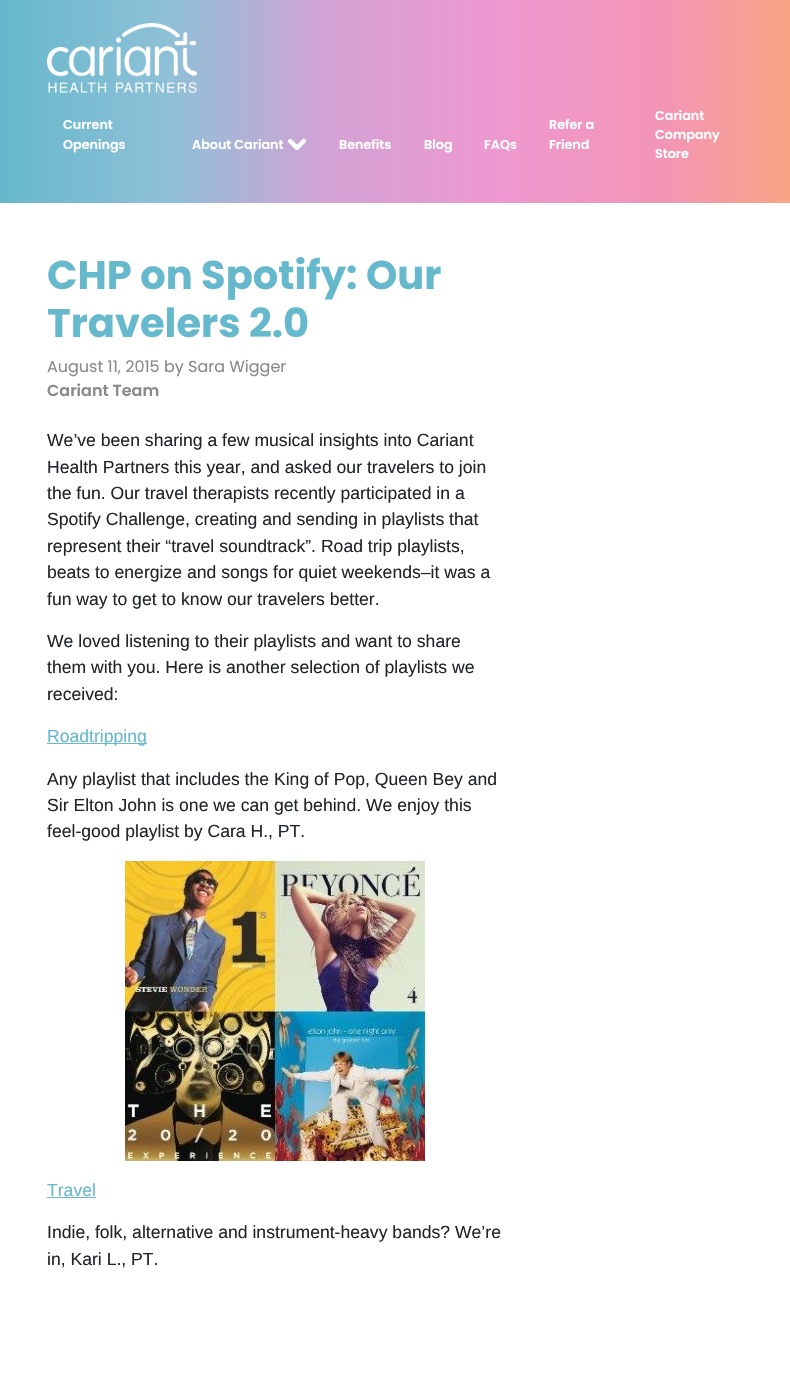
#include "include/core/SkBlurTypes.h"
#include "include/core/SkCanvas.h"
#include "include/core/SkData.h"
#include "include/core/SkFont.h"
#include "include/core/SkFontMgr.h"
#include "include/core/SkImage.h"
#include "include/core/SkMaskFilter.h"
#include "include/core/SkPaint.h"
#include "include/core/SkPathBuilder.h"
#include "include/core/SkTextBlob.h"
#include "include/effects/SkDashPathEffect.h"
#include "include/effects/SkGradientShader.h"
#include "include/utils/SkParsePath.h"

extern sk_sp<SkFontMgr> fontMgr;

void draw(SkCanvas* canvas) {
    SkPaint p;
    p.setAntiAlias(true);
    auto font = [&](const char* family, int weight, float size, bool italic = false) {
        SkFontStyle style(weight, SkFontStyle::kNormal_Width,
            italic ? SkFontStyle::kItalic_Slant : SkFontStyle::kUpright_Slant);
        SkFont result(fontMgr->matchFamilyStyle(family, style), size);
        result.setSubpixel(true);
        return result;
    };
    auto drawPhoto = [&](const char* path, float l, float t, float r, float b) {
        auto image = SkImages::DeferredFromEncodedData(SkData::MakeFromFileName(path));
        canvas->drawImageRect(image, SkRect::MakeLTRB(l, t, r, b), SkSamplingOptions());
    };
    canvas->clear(0xFFFFFFFF);
    {
        const SkColor colors[] = {0xFF66B8CC, 0xFF8EC0D7, 0xFFD3A3D4, 0xFFED98D0, 0xFFF395B6, 0xFFFBA879, 0xFFFAB46E};
        const float stops[] = {0, 0.17f, 0.33f, 0.5f, 0.67f, 0.83f, 1};
        const SkPoint ends[] = {{0, 127}, {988, 127}};
        p.setShader(SkGradientShader::MakeLinear(ends, colors, stops, 7, SkTileMode::kClamp));
        p.setAlpha(255);
    }
    canvas->drawRect(SkRect::MakeLTRB(0, 0, 790, 203), p);
    drawPhoto("media/1.png", 47, 23, 197, 93);
    auto font1 = font("Poppins", 600, 12.75f);
    p.setShader(nullptr);
    p.setColor(0xFFFFFFFF);
    {
        const struct { const char* s; float x, y; } items[] = {
            {"Current", 63, 129},
            {"Openings", 63, 149},
            {"About Cariant", 192, 149},
        };
        for (auto [s, x, y] : items) {
            canvas->drawString(s, x, y, font1, p);
        }
    }
    drawPhoto("media/2.png", 287, 138, 307, 150);
    {
        const struct { const char* s; float x, y; } items[] = {
            {"Benefits", 339, 149},
            {"Blog", 424, 149},
            {"FAQs", 484, 149},
            {"Refer a", 549, 129},
            {"Friend", 549, 149},
            {"Cariant", 655, 120},
            {"Company", 655, 139},
            {"Store", 655, 158},
        };
        for (auto [s, x, y] : items) {
            canvas->drawString(s, x, y, font1, p);
        }
    }
    auto font2 = font("Poppins", 700, 40);
    p.setColor(0xFF66B8CC);
    canvas->drawString("CHP on Spotify: Our", 47, 289, font2, p);
    canvas->drawString("Travelers 2.0", 47, 337, font2, p);
    auto font3 = font("Poppins", 400, 16);
    p.setColor(0xFF8A898C);
    canvas->drawString("August 11, 2015 by Sara Wigger", 47, 372, font3, p);
    auto font4 = font("Poppins", 600, 16);
    canvas->drawString("Cariant Team", 47, 396, font4, p);
    auto font5 = font("Arimo", 400, 17.6f);
    p.setColor(0xFF212529);
    {
        const struct { const char* s; float x, y; } items[] = {
            {"We’ve been sharing a few musical insights into Cariant", 47, 446},
            {"Health Partners this year, and asked our travelers to join", 47, 473},
            {"the fun. Our travel therapists recently participated in a", 47, 499},
            {"Spotify Challenge, creating and sending in playlists that", 47, 525},
            {"represent their “travel soundtrack”. Road trip playlists,", 47, 552},
            {"beats to energize and songs for quiet weekends–it was a", 47, 578},
            {"fun way to get to know our travelers better.", 47, 605},
            {"We loved listening to their playlists and want to share", 47, 647},
            {"them with you. Here is another selection of playlists we", 47, 673},
            {"received:", 47, 700},
        };
        for (auto [s, x, y] : items) {
            canvas->drawString(s, x, y, font5, p);
        }
    }
    p.setColor(0xFF66B8CC);
    canvas->drawRect(SkRect::MakeLTRB(47, 743, 147, 744), p);
    canvas->drawString("Roadtripping", 47, 742, font5, p);
    p.setColor(0xFF212529);
    {
        const struct { const char* s; float x, y; } items[] = {
            {"Any playlist that includes the King of Pop, Queen Bey and", 47, 785},
            {"Sir Elton John is one we can get behind. We enjoy this", 47, 811},
            {"feel-good playlist by Cara H., PT.", 47, 837},
        };
        for (auto [s, x, y] : items) {
            canvas->drawString(s, x, y, font5, p);
        }
    }
    drawPhoto("media/3.png", 125, 861, 425, 1161);
    p.setColor(0xFF66B8CC);
    canvas->drawString("Travel", 47, 1196, font5, p);
    canvas->drawRect(SkRect::MakeLTRB(47, 1197, 96, 1198), p);
    p.setColor(0xFF212529);
    canvas->drawString("Indie, folk, alternative and instrument-heavy bands? We’re", 47, 1238, font5, p);
    canvas->drawString("in, Kari L., PT.", 47, 1265, font5, p);
}
